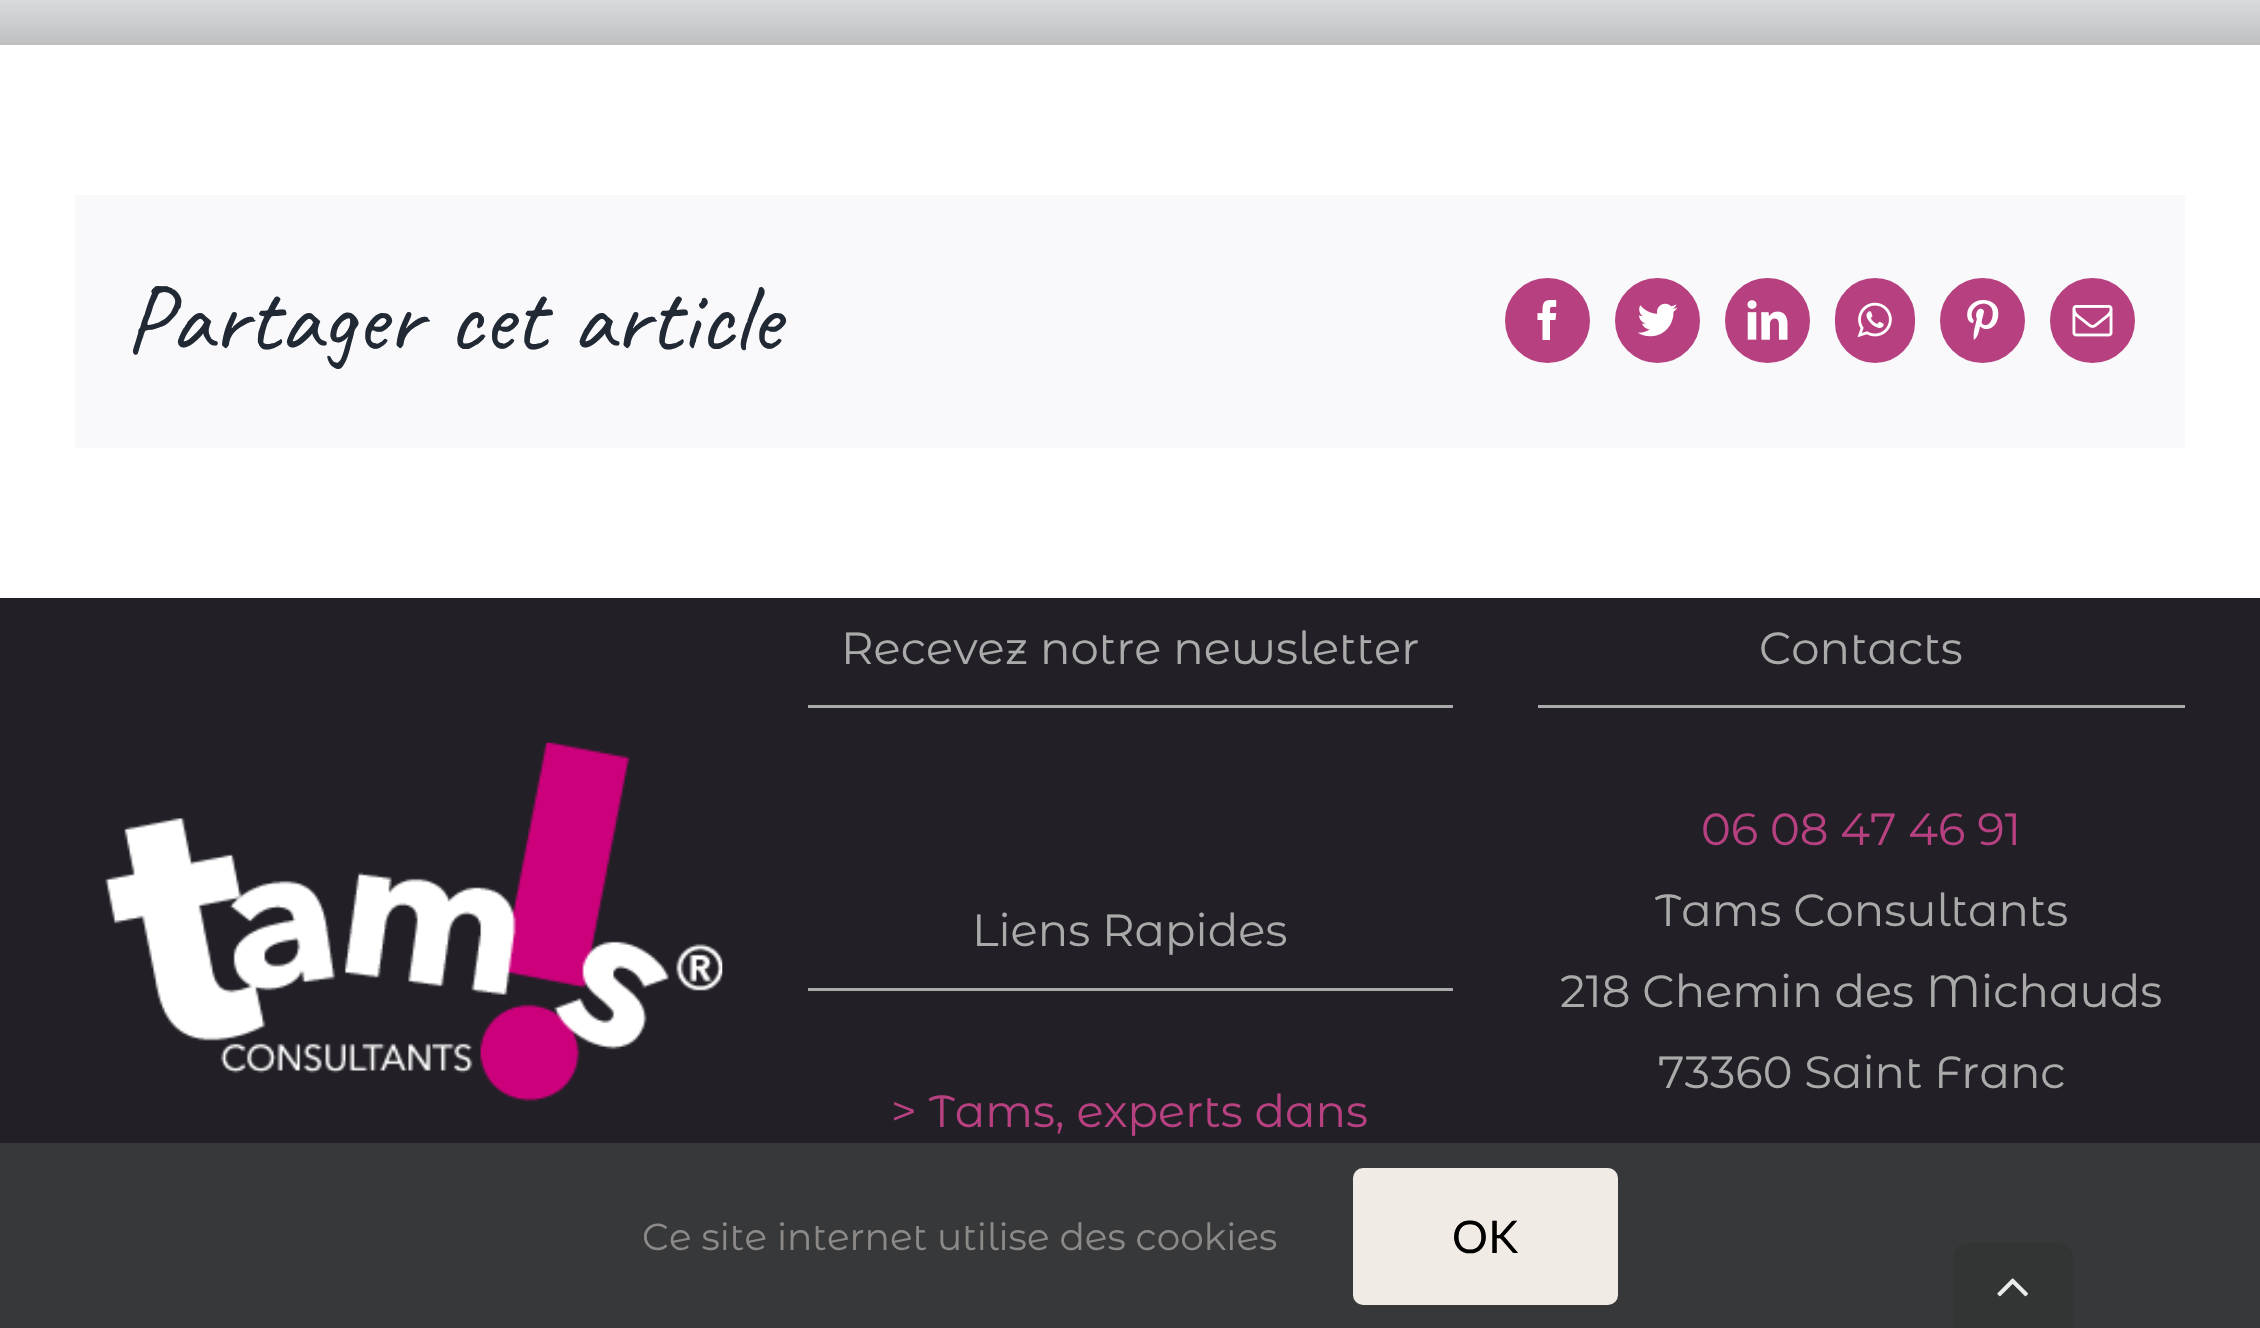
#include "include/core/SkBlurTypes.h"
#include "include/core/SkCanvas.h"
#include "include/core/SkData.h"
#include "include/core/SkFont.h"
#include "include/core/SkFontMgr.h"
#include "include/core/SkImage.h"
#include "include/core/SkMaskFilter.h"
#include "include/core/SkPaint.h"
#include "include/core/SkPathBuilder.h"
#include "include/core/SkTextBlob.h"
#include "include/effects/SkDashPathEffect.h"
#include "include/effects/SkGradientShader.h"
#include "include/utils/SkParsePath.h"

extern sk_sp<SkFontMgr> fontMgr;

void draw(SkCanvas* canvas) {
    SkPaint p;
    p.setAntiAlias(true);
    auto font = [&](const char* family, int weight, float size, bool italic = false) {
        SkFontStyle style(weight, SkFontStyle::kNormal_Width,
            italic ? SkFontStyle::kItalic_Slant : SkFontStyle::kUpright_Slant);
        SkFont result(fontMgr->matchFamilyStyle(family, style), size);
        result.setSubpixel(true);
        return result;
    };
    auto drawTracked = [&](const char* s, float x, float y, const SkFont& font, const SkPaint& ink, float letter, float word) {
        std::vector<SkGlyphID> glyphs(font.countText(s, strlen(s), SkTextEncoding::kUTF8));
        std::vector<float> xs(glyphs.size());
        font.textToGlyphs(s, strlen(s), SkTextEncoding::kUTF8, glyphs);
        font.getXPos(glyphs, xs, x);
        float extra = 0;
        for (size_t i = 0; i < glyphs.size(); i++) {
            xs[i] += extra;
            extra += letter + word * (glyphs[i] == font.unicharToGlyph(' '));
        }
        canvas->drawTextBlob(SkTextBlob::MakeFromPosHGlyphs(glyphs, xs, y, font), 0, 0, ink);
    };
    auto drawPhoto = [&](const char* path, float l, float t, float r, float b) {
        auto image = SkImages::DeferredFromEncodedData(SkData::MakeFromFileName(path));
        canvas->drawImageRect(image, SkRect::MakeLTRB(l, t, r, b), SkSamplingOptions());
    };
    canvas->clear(0xFFFFFFFF);
    {
        const SkColor colors[] = {0xFFBFC0C1, 0xFFF2F3F4};
        const float stops[] = {0, 0.06f};
        const SkPoint ends[] = {{1130, 45}, {1130, -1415}};
        p.setShader(SkGradientShader::MakeLinear(ends, colors, stops, 2, SkTileMode::kClamp));
        p.setAlpha(255);
    }
    canvas->drawRect(SkRect::MakeLTRB(0, 0, 2260, 45), p);
    p.setShader(nullptr);
    p.setColor(0xFFF9F9FB);
    canvas->drawRect(SkRect::MakeLTRB(75, 195, 2185, 448), p);
    auto font1 = font("Caveat", 400, 96.5f);
    p.setColor(0xFF212934);
    drawTracked("Partager cet article", 125, 350, font1, p, 0, 3);
    p.setColor(0xFFB74080);
    canvas->drawCircle(1547.5f, 320.5f, 41, p);
    p.setStyle(SkPaint::kStroke_Style);
    p.setStrokeWidth(3);
    canvas->drawCircle(1547.5f, 320.5f, 41, p);
    drawPhoto("media/1.png", 1537, 300, 1557, 340);
    p.setStyle(SkPaint::kFill_Style);
    canvas->drawCircle(1657.5f, 320.5f, 41, p);
    p.setStyle(SkPaint::kStroke_Style);
    canvas->drawCircle(1657.5f, 320.5f, 41, p);
    drawPhoto("media/2.png", 1637, 303, 1678, 337);
    p.setStyle(SkPaint::kFill_Style);
    canvas->drawCircle(1767.5f, 320.5f, 41, p);
    p.setStyle(SkPaint::kStroke_Style);
    canvas->drawCircle(1767.5f, 320.5f, 41, p);
    drawPhoto("media/3.png", 1747, 300, 1788, 340);
    p.setStyle(SkPaint::kFill_Style);
    canvas->drawRoundRect(SkRect::MakeLTRB(1836.5f, 279.5f, 1913.5f, 361.5f), 38.5f, 38.5f, p);
    p.setStyle(SkPaint::kStroke_Style);
    canvas->drawRoundRect(SkRect::MakeLTRB(1836.5f, 279.5f, 1913.5f, 361.5f), 38.5f, 38.5f, p);
    drawPhoto("media/4.png", 1857, 302, 1892, 338);
    p.setStyle(SkPaint::kFill_Style);
    canvas->drawCircle(1982.5f, 320.5f, 41, p);
    p.setStyle(SkPaint::kStroke_Style);
    canvas->drawCircle(1982.5f, 320.5f, 41, p);
    drawPhoto("media/5.png", 1967, 300, 1999, 340);
    p.setStyle(SkPaint::kFill_Style);
    canvas->drawCircle(2092.5f, 320.5f, 41, p);
    p.setStyle(SkPaint::kStroke_Style);
    canvas->drawCircle(2092.5f, 320.5f, 41, p);
    drawPhoto("media/6.png", 2072, 305, 2113, 337);
    p.setStyle(SkPaint::kFill_Style);
    p.setColor(0xFF221F26);
    canvas->drawRect(SkRect::MakeLTRB(0, 598, 2260, 1143), p);
    drawPhoto("media/7.png", 105, 742, 723, 1102);
    p.setColor(0xFFAAAAAA);
    canvas->drawRect(SkRect::MakeLTRB(808, 705, 1453, 708), p);
    auto font2 = font("Montserrat Alternates", 400, 45);
    canvas->drawString("Recevez notre newsletter", 841, 664, font2, p);
    canvas->drawRect(SkRect::MakeLTRB(808, 988, 1453, 991), p);
    canvas->drawString("Liens Rapides", 972, 946, font2, p);
    p.setColor(0xFFB74080);
    canvas->drawString("> Tams, experts dans", 891, 1127, font2, p);
    p.setColor(0xFFAAAAAA);
    canvas->drawRect(SkRect::MakeLTRB(1538, 705, 2185, 708), p);
    canvas->drawString("Contacts", 1759, 664, font2, p);
    p.setColor(0xFFB74080);
    canvas->drawString("06 08 47 46 91", 1701, 845, font2, p);
    p.setColor(0xFFAAAAAA);
    {
        const struct { const char* s; float x, y; } items[] = {
            {"Tams Consultants", 1655, 926},
            {"218 Chemin des Michauds", 1560, 1007},
            {"73360 Saint Franc", 1658, 1088},
        };
        for (auto [s, x, y] : items) {
            canvas->drawString(s, x, y, font2, p);
        }
    }
    p.setColor(0xFF363839);
    canvas->drawRect(SkRect::MakeLTRB(0, 1143, 2260, 1328), p);
    auto font3 = font("Montserrat Alternates", 400, 37.5f);
    p.setColor(0xFF8C8989);
    canvas->drawString("Ce site internet utilise des cookies", 642, 1250, font3, p);
    p.setColor(0xFFF0ECE5);
    canvas->drawRoundRect(SkRect::MakeLTRB(1353, 1168, 1618, 1305), 10, 10, p);
    auto font4 = font("Lato", 400, 45);
    p.setColor(0xFF000000);
    canvas->drawString("OK", 1452, 1253, font4, p);
    p.setColor(0xFF333434);
    canvas->drawPath(SkPathBuilder().moveTo(1968, 1243).lineTo(2058, 1243).cubicTo(2066.5f, 1243, 2073, 1249.5f, 2073, 1258).lineTo(2073, 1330).lineTo(1953, 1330).lineTo(1953, 1258).cubicTo(1953, 1249.5f, 1959.5f, 1243, 1968, 1243).close().detach(), p);
    drawPhoto("media/8.png", 1997, 1278, 2028, 1297);
}
